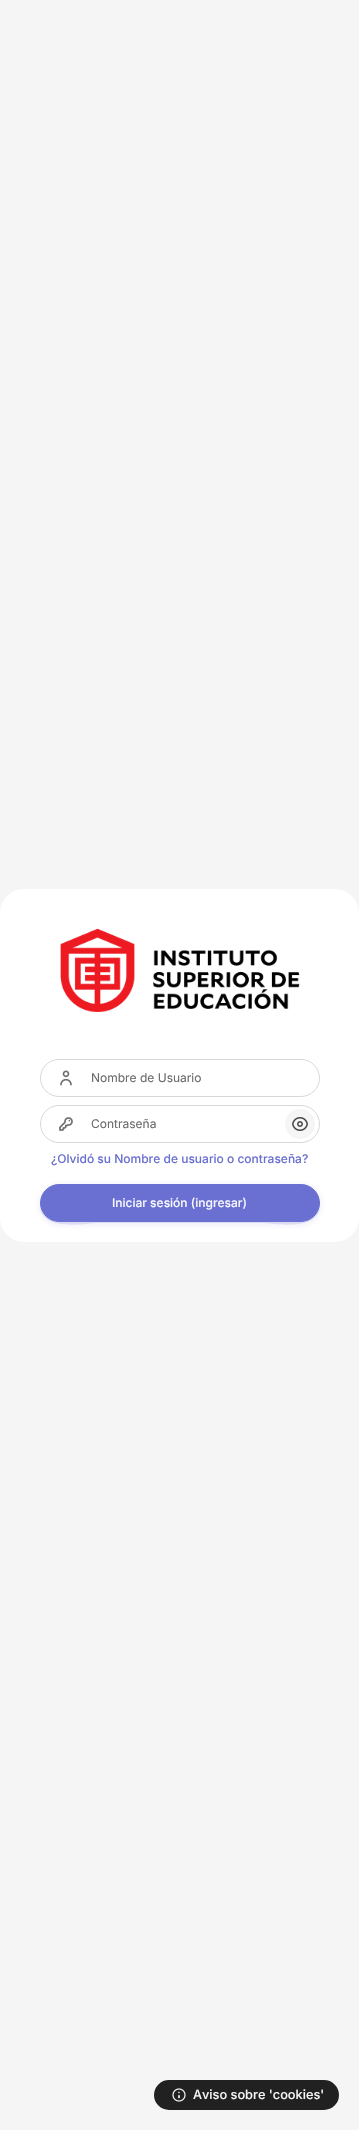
#include "include/core/SkBlurTypes.h"
#include "include/core/SkCanvas.h"
#include "include/core/SkData.h"
#include "include/core/SkFont.h"
#include "include/core/SkFontMgr.h"
#include "include/core/SkImage.h"
#include "include/core/SkMaskFilter.h"
#include "include/core/SkPaint.h"
#include "include/core/SkPathBuilder.h"
#include "include/core/SkTextBlob.h"
#include "include/effects/SkDashPathEffect.h"
#include "include/effects/SkGradientShader.h"
#include "include/utils/SkParsePath.h"

extern sk_sp<SkFontMgr> fontMgr;

void draw(SkCanvas* canvas) {
    SkPaint p;
    p.setAntiAlias(true);
    auto font = [&](const char* family, int weight, float size, bool italic = false) {
        SkFontStyle style(weight, SkFontStyle::kNormal_Width,
            italic ? SkFontStyle::kItalic_Slant : SkFontStyle::kUpright_Slant);
        SkFont result(fontMgr->matchFamilyStyle(family, style), size);
        result.setSubpixel(true);
        return result;
    };
    auto drawPhoto = [&](const char* path, float l, float t, float r, float b) {
        auto image = SkImages::DeferredFromEncodedData(SkData::MakeFromFileName(path));
        canvas->drawImageRect(image, SkRect::MakeLTRB(l, t, r, b), SkSamplingOptions());
    };
    canvas->clear(0xFFF5F5F5);
    p.setColor(0xFFFFFFFF);
    canvas->drawRoundRect(SkRect::MakeLTRB(0, 889, 359, 1242), 24, 24, p);
    drawPhoto("media/1.png", 60, 928, 300, 1012);
    p.setStyle(SkPaint::kStroke_Style);
    p.setStrokeWidth(1);
    p.setColor(0xFFD8D8D8);
    canvas->drawRoundRect(SkRect::MakeLTRB(40.5f, 1059.5f, 319.5f, 1096.5f), 18.5f, 18.5f, p);
    drawPhoto("media/2.png", 60, 1070, 72, 1086);
    auto font1 = font("Inter", 400, 12);
    p.setStyle(SkPaint::kFill_Style);
    p.setColor(0xFF6A6A6A);
    canvas->drawString("Nombre de Usuario", 91, 1082, font1, p);
    p.setStyle(SkPaint::kStroke_Style);
    p.setColor(0xFFD8D8D8);
    canvas->drawRoundRect(SkRect::MakeLTRB(40.5f, 1105.5f, 319.5f, 1142.5f), 18.5f, 18.5f, p);
    drawPhoto("media/3.png", 59, 1117, 73, 1131);
    p.setStyle(SkPaint::kFill_Style);
    p.setColor(0xFF6A6A6A);
    canvas->drawString("Contraseña", 91, 1128, font1, p);
    p.setColor(0xFFF5F5F5);
    canvas->drawCircle(300, 1124, 15, p);
    drawPhoto("media/4.png", 292, 1117, 308, 1131);
    auto font2 = font("Inter", 500, 12);
    p.setColor(0xFF6A70D1);
    canvas->drawString("¿Olvidó su Nombre de usuario o contraseña?", 51, 1163, font2, p);
    p.setColor(0x176A70D1);
    p.setMaskFilter(SkMaskFilter::MakeBlur(kNormal_SkBlurStyle, 2.5f));
    canvas->drawRoundRect(SkRect::MakeLTRB(38, 1184, 322, 1226), 21, 21, p);
    p.setMaskFilter(nullptr);
    p.setColor(0x2E6A70D1);
    canvas->drawPath(SkPathBuilder().moveTo(40, 1204).cubicTo(39, 1233, 87, 1223, 99, 1223).lineTo(261, 1223).cubicTo(273, 1223, 321, 1233, 320, 1204).cubicTo(320, 1214, 311, 1222, 301, 1222).lineTo(59, 1222).cubicTo(49, 1222, 40, 1214, 40, 1204).close().detach(), p);
    p.setColor(0xFF6A70D1);
    canvas->drawRoundRect(SkRect::MakeLTRB(40.5f, 1184.5f, 319.5f, 1221.5f), 18.5f, 18.5f, p);
    p.setStyle(SkPaint::kStroke_Style);
    canvas->drawRoundRect(SkRect::MakeLTRB(40.5f, 1184.5f, 319.5f, 1221.5f), 18.5f, 18.5f, p);
    p.setStyle(SkPaint::kFill_Style);
    p.setColor(0xFFF8F8FD);
    canvas->drawString("Iniciar sesión (ingresar)", 112, 1207, font2, p);
    p.setColor(0xFF212121);
    canvas->drawRoundRect(SkRect::MakeLTRB(154, 2080, 339, 2110), 15, 15, p);
    drawPhoto("media/5.png", 172, 2088, 186, 2102);
    auto font3 = font("Inter", 500, 12.75f);
    p.setColor(0xFFF5F5F5);
    canvas->drawString("Aviso sobre 'cookies'", 193, 2099, font3, p);
}
